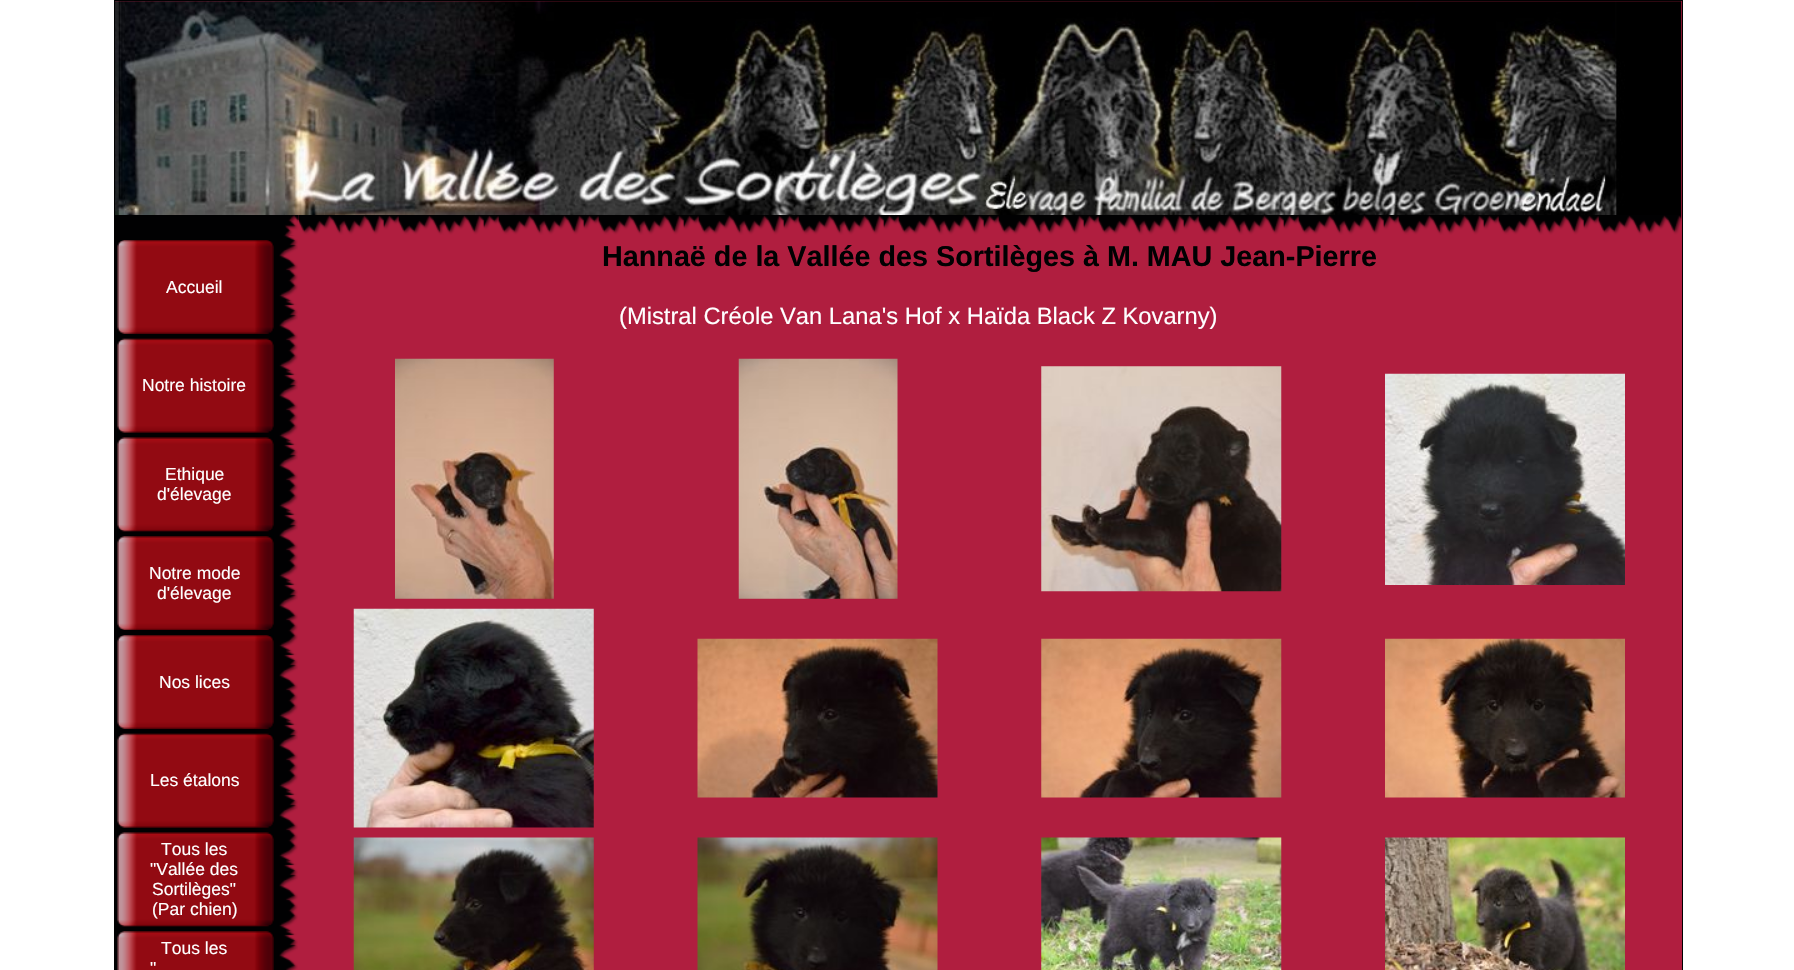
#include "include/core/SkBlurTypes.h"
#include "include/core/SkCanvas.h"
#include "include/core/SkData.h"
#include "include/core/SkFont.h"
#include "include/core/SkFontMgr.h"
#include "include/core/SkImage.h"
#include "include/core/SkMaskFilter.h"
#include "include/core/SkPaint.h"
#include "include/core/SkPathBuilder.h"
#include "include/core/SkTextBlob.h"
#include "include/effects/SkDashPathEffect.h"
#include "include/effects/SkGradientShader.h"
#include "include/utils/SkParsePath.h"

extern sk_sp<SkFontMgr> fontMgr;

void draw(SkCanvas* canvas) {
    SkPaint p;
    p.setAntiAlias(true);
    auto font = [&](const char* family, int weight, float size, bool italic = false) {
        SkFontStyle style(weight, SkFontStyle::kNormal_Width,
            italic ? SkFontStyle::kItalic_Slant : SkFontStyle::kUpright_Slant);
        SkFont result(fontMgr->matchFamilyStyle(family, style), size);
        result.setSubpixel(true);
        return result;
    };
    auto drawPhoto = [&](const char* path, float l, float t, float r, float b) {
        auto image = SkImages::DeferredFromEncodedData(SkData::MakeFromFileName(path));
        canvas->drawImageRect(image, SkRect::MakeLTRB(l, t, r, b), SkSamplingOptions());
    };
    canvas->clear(0xFFFFFFFF);
    p.setColor(0xFFB01E3F);
    canvas->drawRect(SkRect::MakeLTRB(114.5f, 0.5f, 1682.5f, 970.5f), p);
    p.setStyle(SkPaint::kStroke_Style);
    p.setStrokeWidth(1);
    p.setColor(0xFF010102);
    canvas->drawRect(SkRect::MakeLTRB(114.5f, 0.5f, 1682.5f, 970.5f), p);
    drawPhoto("media/1.png", 115, 1, 1682, 215);
    p.setStyle(SkPaint::kFill_Style);
    canvas->drawRect(SkRect::MakeLTRB(115, 215, 279, 970), p);
    drawPhoto("media/3.png", 298, 215, 1682, 235);
    drawPhoto("media/2.png", 279, 215, 299, 235);
    drawPhoto("media/4.png", 117, 240, 274, 334);
    drawPhoto("media/5.png", 117, 245, 274, 334);
    auto font1 = font("Liberation Sans", 400, 17.5f);
    p.setColor(0xFFFFFFFF);
    canvas->drawString("Accueil", 166, 293, font1, p);
    drawPhoto("media/6.png", 117, 338, 274, 433);
    drawPhoto("media/7.png", 117, 338, 274, 433);
    canvas->drawString("Notre histoire", 142, 391, font1, p);
    drawPhoto("media/8.png", 117, 437, 274, 532);
    drawPhoto("media/9.png", 117, 437, 274, 532);
    canvas->drawString("Ethique", 165, 480, font1, p);
    canvas->drawString("d'élevage", 157, 500, font1, p);
    drawPhoto("media/10.png", 117, 536, 274, 630);
    drawPhoto("media/11.png", 117, 536, 274, 625);
    canvas->drawString("Notre mode", 149, 579, font1, p);
    canvas->drawString("d'élevage", 157, 599, font1, p);
    drawPhoto("media/4.png", 117, 635, 274, 729);
    drawPhoto("media/5.png", 117, 640, 274, 729);
    canvas->drawString("Nos lices", 159, 688, font1, p);
    drawPhoto("media/6.png", 117, 733, 274, 828);
    drawPhoto("media/7.png", 117, 733, 274, 828);
    canvas->drawString("Les étalons", 150, 786, font1, p);
    drawPhoto("media/8.png", 117, 832, 274, 927);
    drawPhoto("media/9.png", 117, 832, 274, 927);
    {
        const struct { const char* s; float x, y; } items[] = {
            {"Tous les", 161, 855},
            {"\"Vallée des", 150, 875},
            {"Sortilèges\"", 152, 895},
            {"(Par chien)", 152, 915},
        };
        for (auto [s, x, y] : items) {
            canvas->drawString(s, x, y, font1, p);
        }
    }
    drawPhoto("media/12.png", 117, 931, 274, 970);
    drawPhoto("media/13.png", 117, 931, 274, 970);
    canvas->drawString("Tous les", 161, 954, font1, p);
    canvas->drawString("\"", 150, 974, font1, p);
    drawPhoto("media/14.png", 279, 235, 298, 970);
    auto font2 = font("Liberation Sans", 700, 28.75f);
    p.setColor(0xFF010102);
    canvas->drawString("Hannaë de la Vallée des Sortilèges à M. MAU Jean-Pierre", 602, 266, font2, p);
    auto font3 = font("Liberation Sans", 400, 23.75f);
    p.setColor(0xFFFFFFFF);
    canvas->drawString("(Mistral Créole Van Lana's Hof x Haïda Black Z Kovarny)", 619, 324, font3, p);
    drawPhoto("media/15.png", 395, 358, 554, 599);
    drawPhoto("media/16.png", 738, 358, 898, 599);
    drawPhoto("media/17.png", 1041, 366, 1282, 592);
    drawPhoto("media/18.png", 1385, 373, 1625, 585);
    drawPhoto("media/19.png", 353, 608, 594, 828);
    drawPhoto("media/20.png", 697, 638, 938, 798);
    drawPhoto("media/21.png", 1041, 638, 1282, 798);
    drawPhoto("media/22.png", 1385, 638, 1625, 798);
    drawPhoto("media/23.png", 353, 837, 594, 970);
    drawPhoto("media/24.png", 697, 837, 938, 970);
    drawPhoto("media/25.png", 1041, 837, 1282, 970);
    drawPhoto("media/26.png", 1385, 837, 1625, 970);
}
